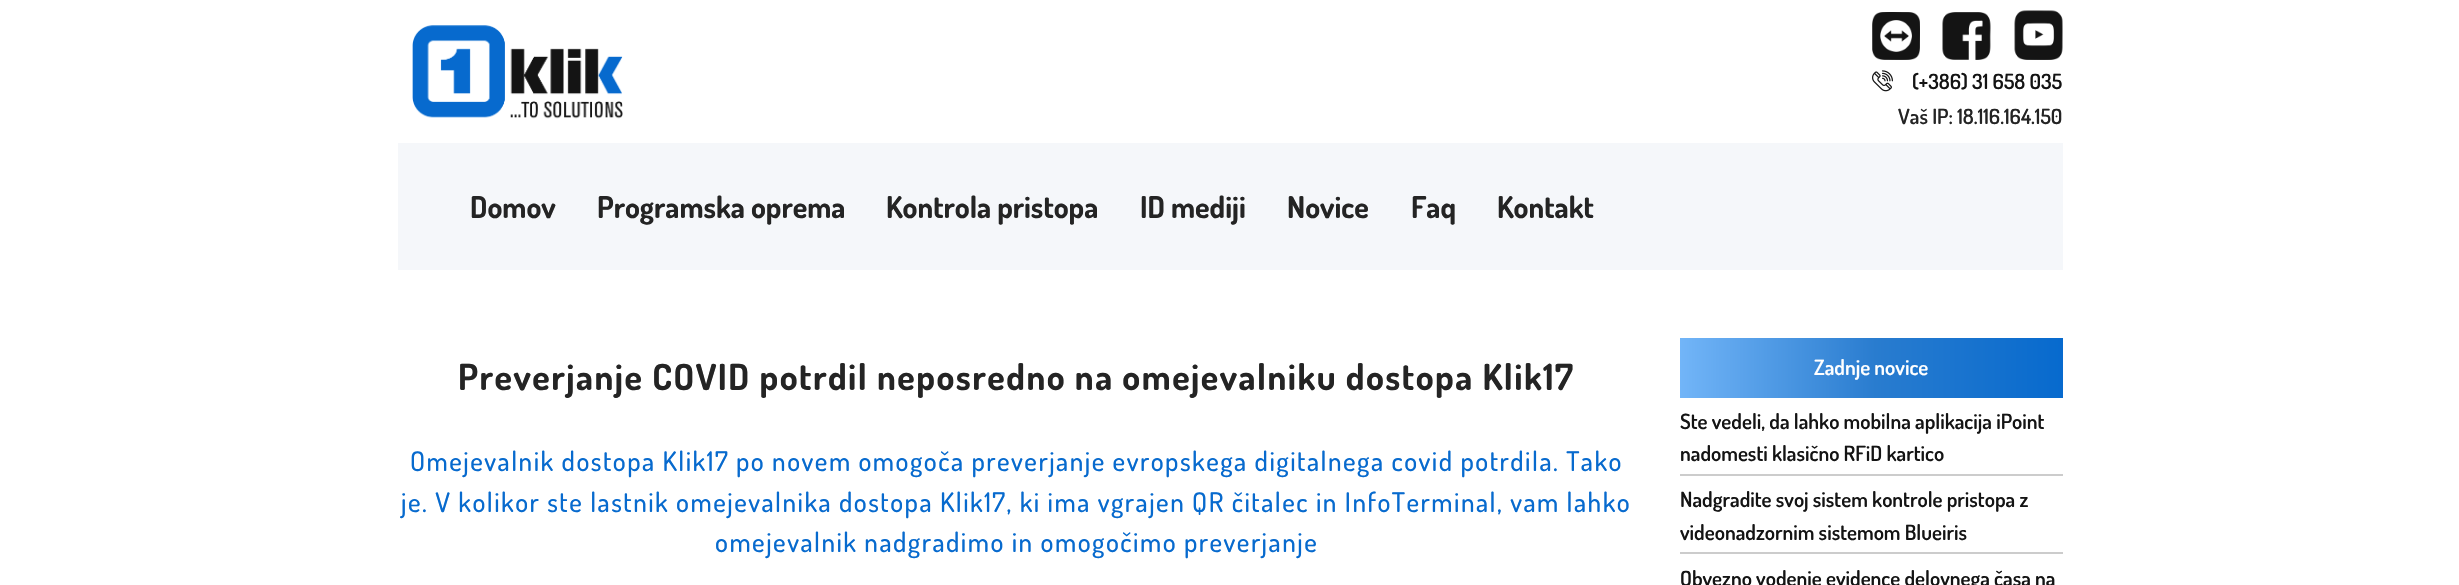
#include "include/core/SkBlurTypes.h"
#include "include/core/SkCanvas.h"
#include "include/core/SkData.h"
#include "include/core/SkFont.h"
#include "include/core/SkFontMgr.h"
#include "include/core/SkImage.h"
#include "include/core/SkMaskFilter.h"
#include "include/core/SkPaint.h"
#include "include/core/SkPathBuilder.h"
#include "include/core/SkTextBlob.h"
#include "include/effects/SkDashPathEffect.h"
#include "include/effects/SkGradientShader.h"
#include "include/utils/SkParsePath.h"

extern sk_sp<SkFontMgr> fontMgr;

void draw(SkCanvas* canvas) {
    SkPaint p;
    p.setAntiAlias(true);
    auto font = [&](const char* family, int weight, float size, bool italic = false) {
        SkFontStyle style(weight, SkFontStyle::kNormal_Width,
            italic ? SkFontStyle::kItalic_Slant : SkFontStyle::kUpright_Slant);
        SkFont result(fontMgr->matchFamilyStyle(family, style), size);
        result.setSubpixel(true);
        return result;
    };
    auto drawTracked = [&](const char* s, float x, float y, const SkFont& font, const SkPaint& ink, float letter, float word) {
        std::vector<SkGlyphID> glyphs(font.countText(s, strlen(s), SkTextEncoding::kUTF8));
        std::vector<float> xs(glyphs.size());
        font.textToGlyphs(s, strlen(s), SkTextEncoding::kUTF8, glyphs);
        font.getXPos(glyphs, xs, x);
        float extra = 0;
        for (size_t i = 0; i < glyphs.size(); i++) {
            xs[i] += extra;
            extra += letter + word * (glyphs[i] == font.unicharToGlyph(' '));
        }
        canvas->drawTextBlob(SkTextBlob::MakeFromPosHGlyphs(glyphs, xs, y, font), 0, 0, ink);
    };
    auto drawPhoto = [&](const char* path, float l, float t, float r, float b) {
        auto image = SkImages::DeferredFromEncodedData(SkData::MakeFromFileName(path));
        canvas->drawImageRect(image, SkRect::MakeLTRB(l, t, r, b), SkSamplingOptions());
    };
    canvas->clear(0xFFFFFFFF);
    drawPhoto("media/1.png", 412, 25, 623, 119);
    drawPhoto("media/2.png", 1872, 12, 1920, 60);
    drawPhoto("media/3.png", 1942, 12, 1991, 60);
    drawPhoto("media/4.png", 2014, 10, 2063, 60);
    drawPhoto("media/5.png", 1872, 70, 1893, 92);
    auto font1 = font("Dosis", 600, 21);
    p.setColor(0xFF141414);
    canvas->drawString("(+386) 31 658 035", 1912, 89, font1, p);
    p.setColor(0xFF242424);
    canvas->drawString("Vaš IP: 18.116.164.150", 1898, 124, font1, p);
    p.setColor(0xFFF5F7FA);
    canvas->drawRect(SkRect::MakeLTRB(398, 143, 2063, 270), p);
    auto font2 = font("Dosis", 700, 30);
    p.setColor(0xFF242424);
    {
        const struct { const char* s; float x, y; } items[] = {
            {"Domov", 470, 218},
            {"Programska oprema", 597, 218},
            {"Kontrola pristopa", 886, 218},
            {"ID mediji", 1140, 218},
            {"Novice", 1287, 218},
            {"Faq", 1411, 218},
            {"Kontakt", 1497, 218},
        };
        for (auto [s, x, y] : items) {
            canvas->drawString(s, x, y, font2, p);
        }
    }
    auto font3 = font("Dosis", 700, 36);
    drawTracked("Preverjanje COVID potrdil neposredno na omejevalniku dostopa Klik17", 458, 390, font3, p, 1.5f, 0);
    auto font4 = font("Dosis", 500, 27);
    p.setColor(0xFF076ACE);
    {
        const struct { const char* s; float x, y; } items[] = {
            {"Omejevalnik dostopa Klik17 po novem omogoča preverjanje evropskega digitalnega covid potrdila. Tako", 410, 471},
            {"je. V kolikor ste lastnik omejevalnika dostopa Klik17, ki ima vgrajen QR čitalec in InfoTerminal, vam lahko", 401, 512},
            {"omejevalnik nadgradimo in omogočimo preverjanje", 715, 552},
        };
        for (auto [s, x, y] : items) {
            drawTracked(s, x, y, font4, p, 1.5f, 0);
        }
    }
    {
        const SkColor colors[] = {0xFF72B5F8, 0xFF297CCF, 0xFF076ACE};
        const float stops[] = {0, 0.51f, 1};
        const SkPoint ends[] = {{1680, 368}, {2063, 368}};
        p.setShader(SkGradientShader::MakeLinear(ends, colors, stops, 3, SkTileMode::kClamp));
        p.setAlpha(255);
    }
    canvas->drawRect(SkRect::MakeLTRB(1680, 338, 2063, 398), p);
    p.setShader(nullptr);
    p.setColor(0xFFFFFFFF);
    canvas->drawString("Zadnje novice", 1814, 375, font1, p);
    p.setColor(0xFFCCCCCC);
    canvas->drawRect(SkRect::MakeLTRB(1680, 474, 2063, 476), p);
    p.setColor(0xFF141414);
    canvas->drawString("Ste vedeli, da lahko mobilna aplikacija iPoint", 1680, 429, font1, p);
    canvas->drawString("nadomesti klasično RFiD kartico", 1680, 461, font1, p);
    p.setColor(0xFFCCCCCC);
    canvas->drawRect(SkRect::MakeLTRB(1680, 552, 2063, 554), p);
    p.setColor(0xFF141414);
    {
        const struct { const char* s; float x, y; } items[] = {
            {"Nadgradite svoj sistem kontrole pristopa z", 1680, 507},
            {"videonadzornim sistemom Blueiris", 1680, 540},
            {"Obvezno vodenje evidence delovnega časa na", 1680, 586},
        };
        for (auto [s, x, y] : items) {
            canvas->drawString(s, x, y, font1, p);
        }
    }
}
